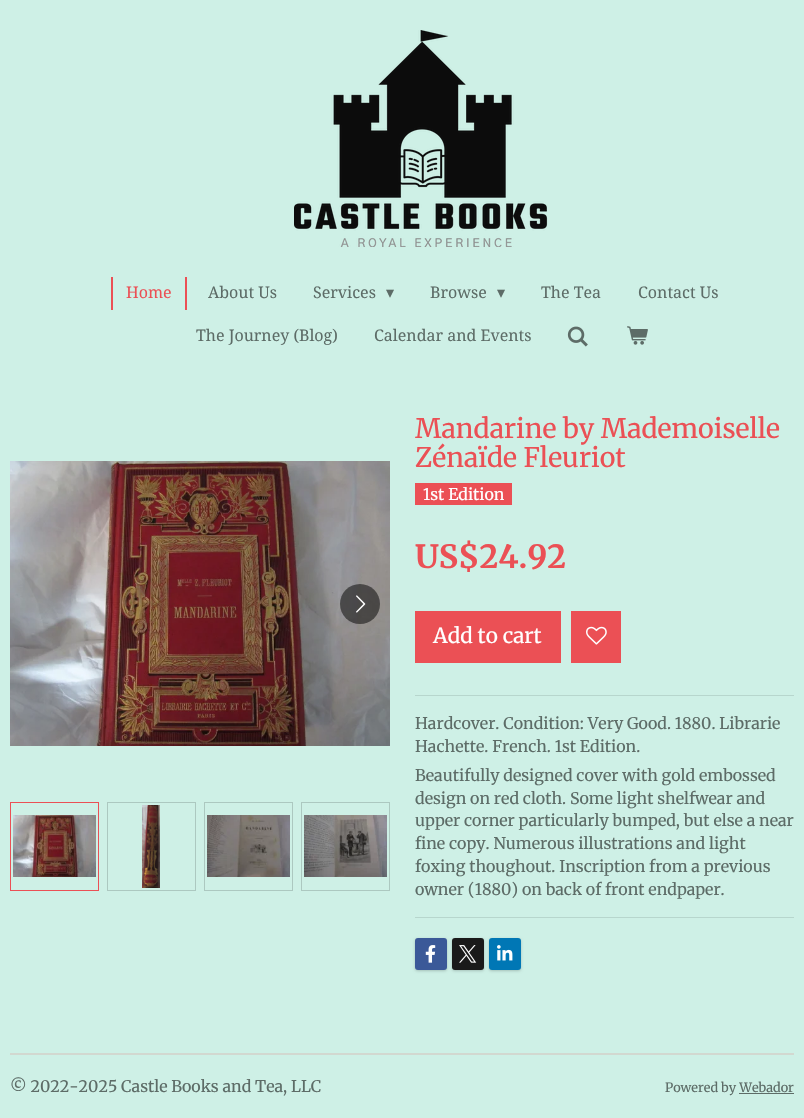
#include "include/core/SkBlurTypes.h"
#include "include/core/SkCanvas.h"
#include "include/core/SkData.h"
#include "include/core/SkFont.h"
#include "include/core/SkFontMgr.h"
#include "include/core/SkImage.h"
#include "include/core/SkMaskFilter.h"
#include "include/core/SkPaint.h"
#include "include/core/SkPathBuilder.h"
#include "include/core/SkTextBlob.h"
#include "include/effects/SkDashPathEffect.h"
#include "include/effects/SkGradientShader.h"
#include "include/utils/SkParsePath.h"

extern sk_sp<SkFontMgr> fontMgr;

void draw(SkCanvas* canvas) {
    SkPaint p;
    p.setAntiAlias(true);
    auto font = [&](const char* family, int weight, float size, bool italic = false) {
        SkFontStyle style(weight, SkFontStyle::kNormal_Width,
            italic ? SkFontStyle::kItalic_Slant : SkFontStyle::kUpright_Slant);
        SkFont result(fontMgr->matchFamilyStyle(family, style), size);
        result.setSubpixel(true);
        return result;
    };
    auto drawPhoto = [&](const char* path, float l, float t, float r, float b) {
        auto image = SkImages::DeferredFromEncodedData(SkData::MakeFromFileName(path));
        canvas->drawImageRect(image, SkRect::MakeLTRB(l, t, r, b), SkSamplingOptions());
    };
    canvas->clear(0xFFCEF0E6);
    drawPhoto("media/1.png", 294, 30, 548, 247);
    p.setColor(0xFFEB5055);
    canvas->drawRect(SkRect::MakeLTRB(185, 277, 187, 310), p);
    canvas->drawRect(SkRect::MakeLTRB(111, 277, 113, 310), p);
    auto font1 = font("Droid Serif", 400, 16);
    canvas->drawString("Home", 126, 298, font1, p);
    p.setColor(0xFF5D6C67);
    canvas->drawString("About Us", 208, 298, font1, p);
    canvas->drawString("Services", 313, 298, font1, p);
    auto font2 = font("DejaVu Sans", 400, 16);
    canvas->drawString("▾", 386, 298, font2, p);
    canvas->drawString("Browse", 430, 298, font1, p);
    canvas->drawString("▾", 497, 298, font2, p);
    {
        const struct { const char* s; float x, y; } items[] = {
            {"The Tea", 541, 298},
            {"Contact Us", 638, 298},
            {"The Journey (Blog)", 196, 341},
            {"Calendar and Events", 374, 341},
        };
        for (auto [s, x, y] : items) {
            canvas->drawString(s, x, y, font1, p);
        }
    }
    drawPhoto("media/2.png", 567, 326, 588, 347);
    drawPhoto("media/3.png", 627, 326, 648, 345);
    drawPhoto("media/4.png", 10, 461, 390, 746);
    p.setColor(0x80000000);
    canvas->drawCircle(360, 604, 20, p);
    drawPhoto("media/5.png", 356, 595, 366, 613);
    p.setStyle(SkPaint::kStroke_Style);
    p.setStrokeWidth(1);
    p.setColor(0xFFEB5055);
    canvas->drawRect(SkRect::MakeLTRB(10.5f, 802.5f, 98.5f, 890.5f), p);
    drawPhoto("media/6.png", 13, 815, 96, 877);
    p.setColor(0xFFACC8C0);
    canvas->drawRect(SkRect::MakeLTRB(107.5f, 802.5f, 195.5f, 890.5f), p);
    drawPhoto("media/7.png", 142, 805, 160, 888);
    canvas->drawRect(SkRect::MakeLTRB(204.5f, 802.5f, 292.5f, 890.5f), p);
    drawPhoto("media/8.png", 207, 815, 290, 877);
    canvas->drawRect(SkRect::MakeLTRB(301.5f, 802.5f, 389.5f, 890.5f), p);
    drawPhoto("media/9.png", 304, 815, 387, 877);
    auto font3 = font("Merriweather", 400, 26.75f);
    p.setStyle(SkPaint::kFill_Style);
    p.setColor(0xFFEB5055);
    canvas->drawString("Mandarine by Mademoiselle", 415, 438, font3, p);
    canvas->drawString("Zénaïde Fleuriot", 415, 467, font3, p);
    canvas->drawRect(SkRect::MakeLTRB(415, 483, 512, 505), p);
    auto font4 = font("Merriweather", 400, 16);
    p.setColor(0xFFFFFFFF);
    canvas->drawString("1st Edition", 423, 500, font4, p);
    auto font5 = font("Merriweather", 700, 32);
    p.setColor(0xFFEB5055);
    canvas->drawString("US$24.92", 415, 568, font5, p);
    canvas->drawRect(SkRect::MakeLTRB(415, 611, 561, 663), p);
    auto font6 = font("Merriweather", 400, 20.75f);
    p.setColor(0xFFFFFFFF);
    canvas->drawString("Add to cart", 433, 643, font6, p);
    p.setColor(0xFFEB5055);
    canvas->drawRect(SkRect::MakeLTRB(571, 611, 621, 663), p);
    drawPhoto("media/10.png", 586, 626, 607, 645);
    p.setColor(0xFFB7D6CD);
    canvas->drawRect(SkRect::MakeLTRB(415, 695, 794, 696), p);
    p.setColor(0xFF5D6C67);
    {
        const struct { const char* s; float x, y; } items[] = {
            {"Hardcover. Condition: Very Good. 1880. Librarie", 415, 729},
            {"Hachette. French. 1st Edition.", 415, 752},
            {"Beautifully designed cover with gold embossed", 415, 781},
            {"design on red cloth. Some light shelfwear and", 415, 804},
            {"upper corner particularly bumped, but else a near", 415, 826},
            {"fine copy. Numerous illustrations and light", 415, 849},
            {"foxing thoughout. Inscription from a previous", 415, 872},
            {"owner (1880) on back of front endpaper.", 415, 895},
        };
        for (auto [s, x, y] : items) {
            canvas->drawString(s, x, y, font4, p);
        }
    }
    p.setColor(0xFFB7D6CD);
    canvas->drawRect(SkRect::MakeLTRB(415, 917, 794, 918), p);
    p.setColor(0x33000000);
    p.setMaskFilter(SkMaskFilter::MakeBlur(kNormal_SkBlurStyle, 1.5f));
    canvas->drawRoundRect(SkRect::MakeLTRB(415, 939, 447, 971), 3, 3, p);
    p.setMaskFilter(nullptr);
    p.setColor(0xFF3B5998);
    canvas->drawRoundRect(SkRect::MakeLTRB(415, 938, 447, 970), 3, 3, p);
    drawPhoto("media/11.png", 425, 945, 436, 963);
    p.setColor(0x33000000);
    p.setMaskFilter(SkMaskFilter::MakeBlur(kNormal_SkBlurStyle, 1.5f));
    canvas->drawRoundRect(SkRect::MakeLTRB(452, 939, 484, 971), 3, 3, p);
    p.setMaskFilter(nullptr);
    p.setColor(0xFF1A1A1A);
    canvas->drawRoundRect(SkRect::MakeLTRB(452, 938, 484, 970), 3, 3, p);
    drawPhoto("media/12.png", 459, 945, 477, 963);
    p.setColor(0x33000000);
    p.setMaskFilter(SkMaskFilter::MakeBlur(kNormal_SkBlurStyle, 1.5f));
    canvas->drawRoundRect(SkRect::MakeLTRB(489, 939, 521, 971), 3, 3, p);
    p.setMaskFilter(nullptr);
    p.setColor(0xFF0077B5);
    canvas->drawRoundRect(SkRect::MakeLTRB(489, 938, 521, 970), 3, 3, p);
    drawPhoto("media/13.png", 497, 945, 513, 961);
    p.setColor(0xFFD2D8D0);
    canvas->drawRect(SkRect::MakeLTRB(10, 1053, 794, 1055), p);
    p.setColor(0xFF5D6C67);
    canvas->drawString("© 2022-2025 Castle Books and Tea, LLC", 10, 1092, font4, p);
    auto font7 = font("Merriweather", 400, 12.75f);
    canvas->drawString("Powered by Webador", 665, 1092, font7, p);
    canvas->drawRect(SkRect::MakeLTRB(739, 1093, 794, 1094), p);
}
